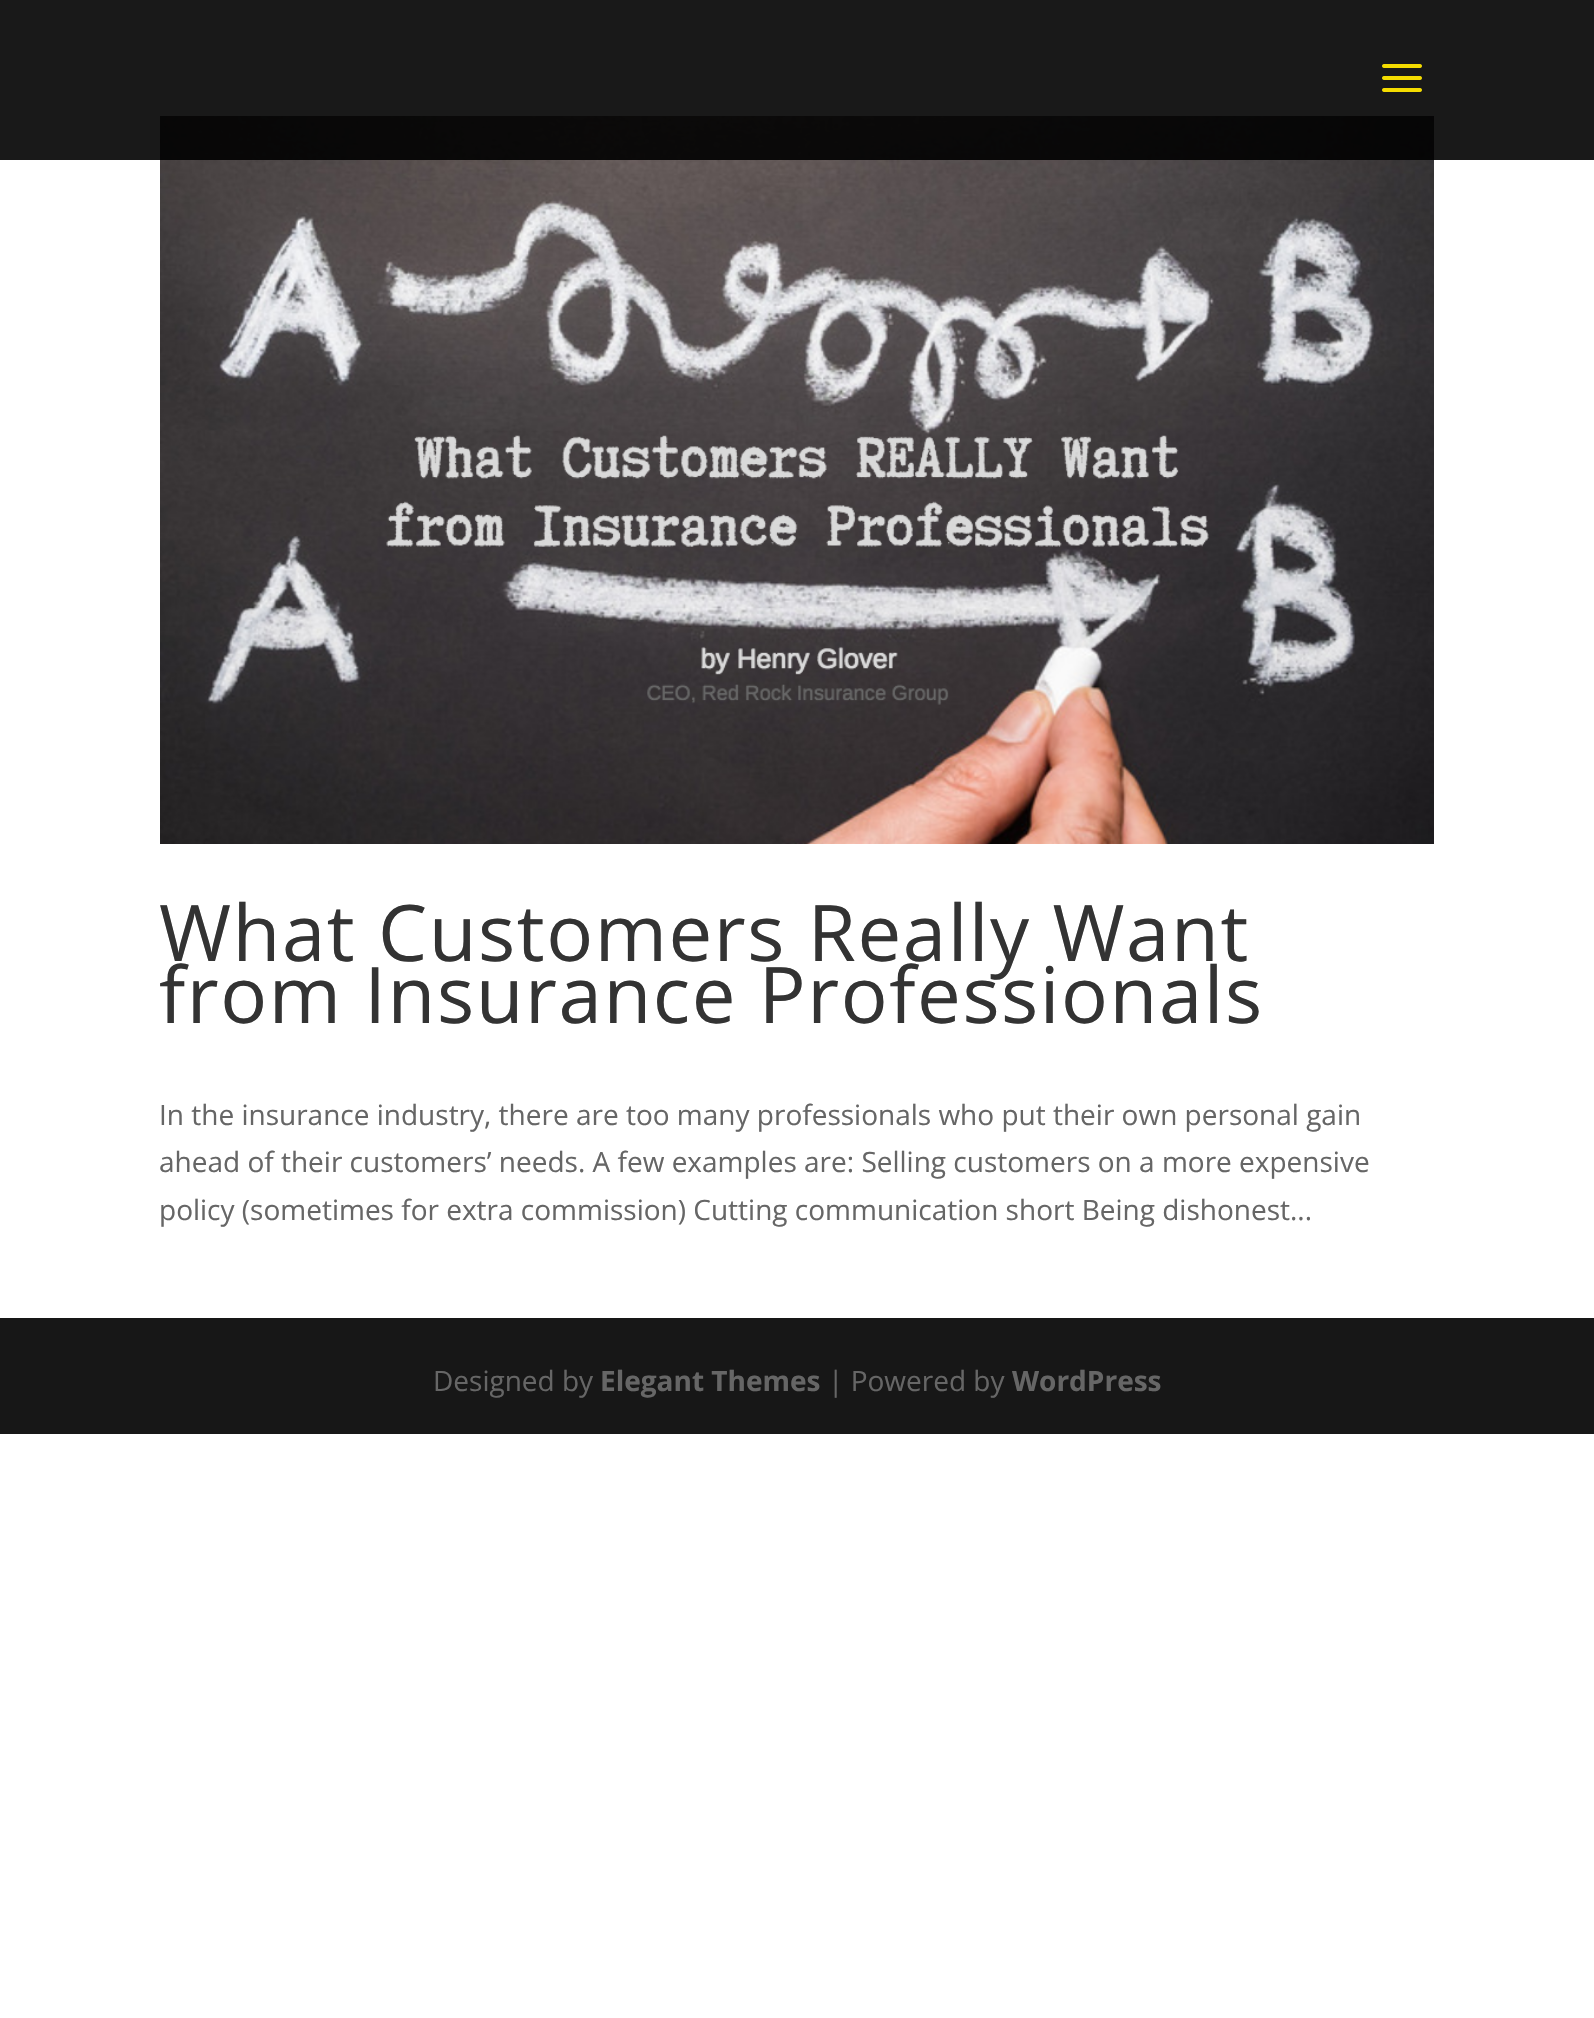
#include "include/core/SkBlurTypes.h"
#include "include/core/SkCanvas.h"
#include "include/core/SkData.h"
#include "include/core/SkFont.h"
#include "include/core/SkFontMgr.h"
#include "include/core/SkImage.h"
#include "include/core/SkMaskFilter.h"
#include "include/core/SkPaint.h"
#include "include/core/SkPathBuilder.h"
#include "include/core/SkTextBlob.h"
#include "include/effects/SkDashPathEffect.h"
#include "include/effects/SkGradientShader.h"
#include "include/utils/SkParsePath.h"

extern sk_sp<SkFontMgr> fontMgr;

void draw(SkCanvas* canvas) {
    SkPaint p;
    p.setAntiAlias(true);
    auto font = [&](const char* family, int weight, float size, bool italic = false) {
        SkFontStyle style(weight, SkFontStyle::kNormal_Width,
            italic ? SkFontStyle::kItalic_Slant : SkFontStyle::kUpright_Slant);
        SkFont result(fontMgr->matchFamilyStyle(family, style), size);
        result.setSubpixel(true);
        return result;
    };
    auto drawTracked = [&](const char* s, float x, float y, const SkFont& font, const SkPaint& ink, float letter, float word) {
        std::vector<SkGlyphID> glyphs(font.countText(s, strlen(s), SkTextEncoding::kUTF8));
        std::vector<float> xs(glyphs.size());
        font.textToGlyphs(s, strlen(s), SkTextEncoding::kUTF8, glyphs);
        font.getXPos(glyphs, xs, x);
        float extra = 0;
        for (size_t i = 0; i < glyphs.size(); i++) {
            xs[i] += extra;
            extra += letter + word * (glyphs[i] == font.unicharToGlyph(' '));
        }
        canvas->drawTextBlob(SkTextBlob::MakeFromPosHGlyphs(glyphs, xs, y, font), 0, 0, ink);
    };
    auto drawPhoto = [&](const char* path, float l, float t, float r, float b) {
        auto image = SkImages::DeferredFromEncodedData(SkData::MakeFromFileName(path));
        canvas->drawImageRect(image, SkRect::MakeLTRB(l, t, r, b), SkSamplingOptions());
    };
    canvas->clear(0xFFFFFFFF);
    drawPhoto("media/2.png", 160, 116, 1434, 844);
    p.setColor(0xE6000000);
    canvas->drawRect(SkRect::MakeLTRB(0, 0, 1594, 160), p);
    drawPhoto("media/1.png", 1382, 64, 1422, 92);
    auto font1 = font("Open Sans", 400, 78);
    p.setColor(0xFF333333);
    drawTracked("What Customers Really Want", 159, 961, font1, p, 1.55f, 0);
    drawTracked("from Insurance Professionals", 159, 1023, font1, p, 1.55f, 0);
    auto font2 = font("Open Sans", 400, 28);
    p.setColor(0xFF666666);
    {
        const struct { const char* s; float x, y; } items[] = {
            {"In the insurance industry, there are too many professionals who put their own personal gain", 159, 1125},
            {"ahead of their customers’ needs. A few examples are: Selling customers on a more expensive", 159, 1172},
            {"policy (sometimes for extra commission) Cutting communication short Being dishonest...", 159, 1220},
        };
        for (auto [s, x, y] : items) {
            canvas->drawString(s, x, y, font2, p);
        }
    }
    p.setColor(0xFF171717);
    canvas->drawRect(SkRect::MakeLTRB(0, 1318, 1594, 1434), p);
    p.setColor(0xFF666666);
    canvas->drawString("Designed by", 433, 1391, font2, p);
    auto font3 = font("Open Sans", 700, 28);
    canvas->drawString("Elegant Themes", 600, 1391, font3, p);
    canvas->drawString("| Powered by", 828, 1391, font2, p);
    canvas->drawString("WordPress", 1012, 1391, font3, p);
}
